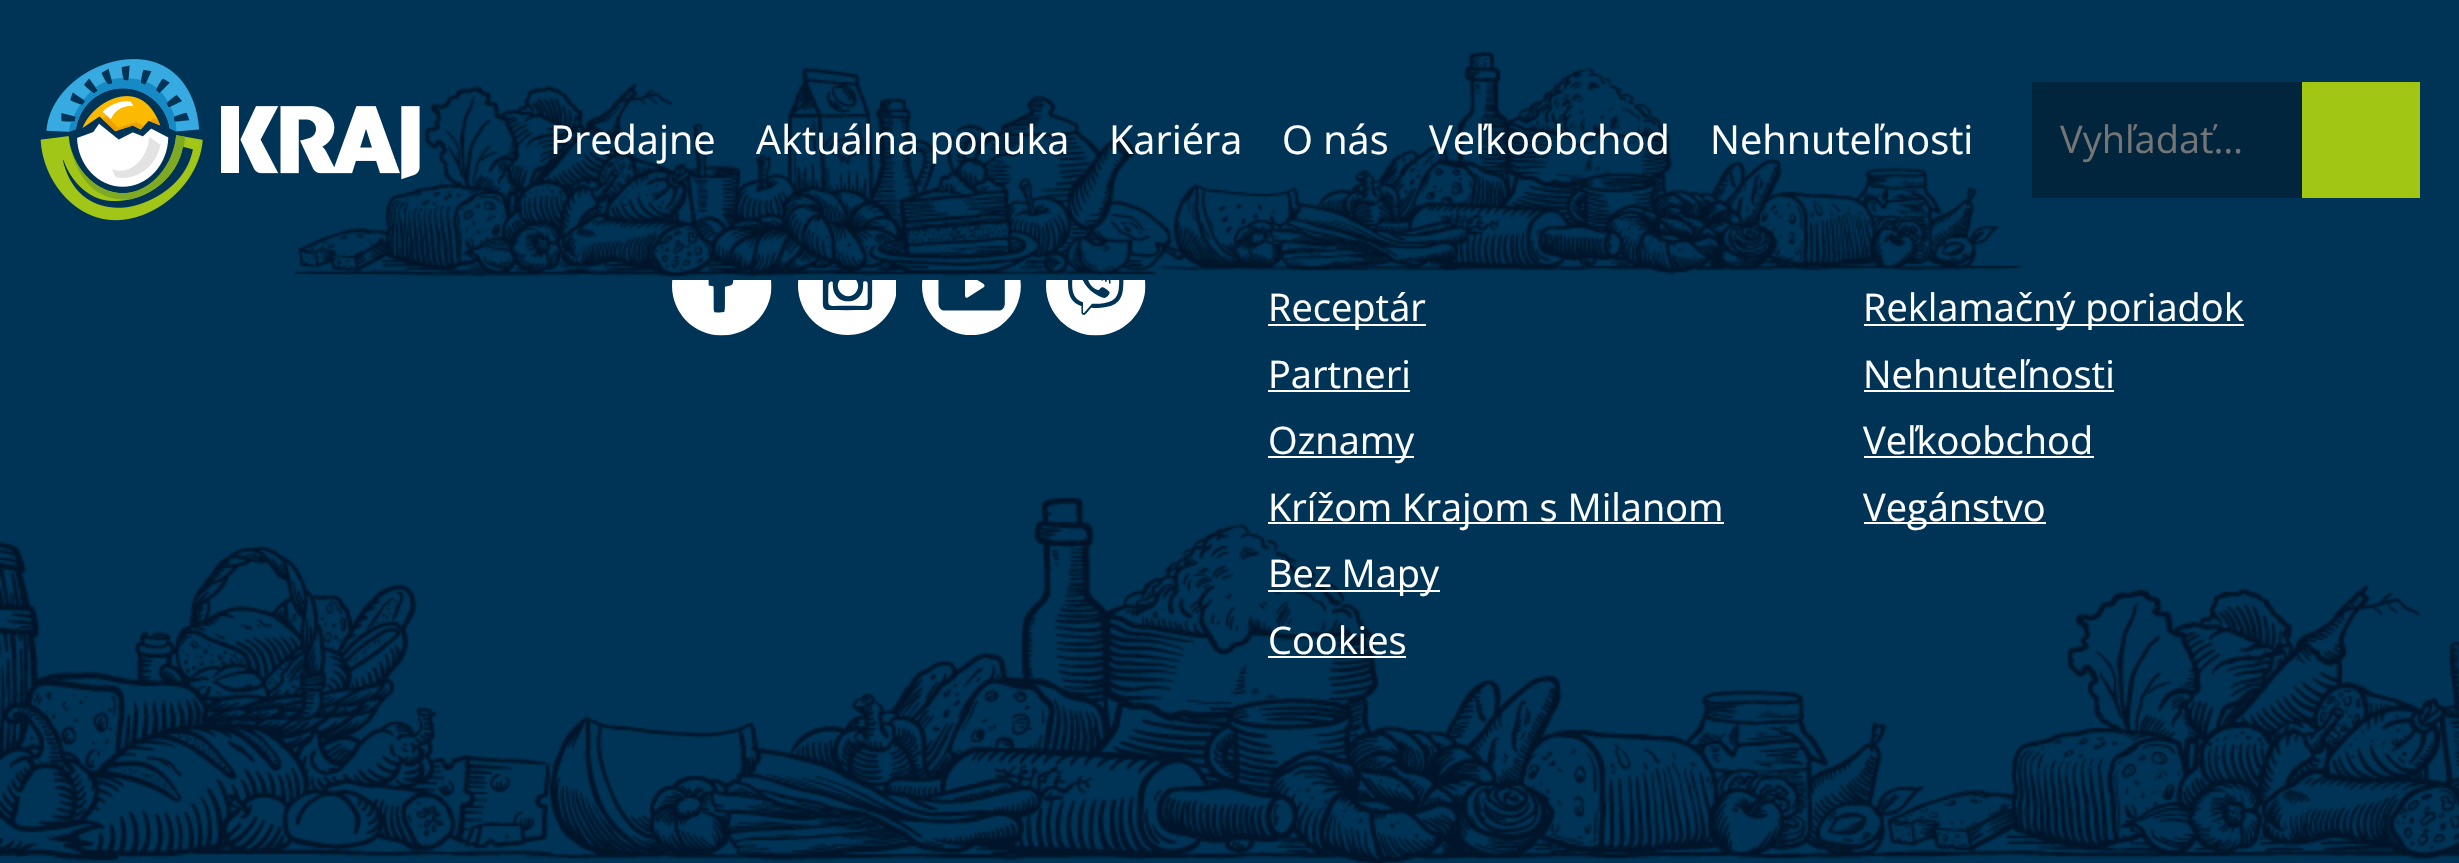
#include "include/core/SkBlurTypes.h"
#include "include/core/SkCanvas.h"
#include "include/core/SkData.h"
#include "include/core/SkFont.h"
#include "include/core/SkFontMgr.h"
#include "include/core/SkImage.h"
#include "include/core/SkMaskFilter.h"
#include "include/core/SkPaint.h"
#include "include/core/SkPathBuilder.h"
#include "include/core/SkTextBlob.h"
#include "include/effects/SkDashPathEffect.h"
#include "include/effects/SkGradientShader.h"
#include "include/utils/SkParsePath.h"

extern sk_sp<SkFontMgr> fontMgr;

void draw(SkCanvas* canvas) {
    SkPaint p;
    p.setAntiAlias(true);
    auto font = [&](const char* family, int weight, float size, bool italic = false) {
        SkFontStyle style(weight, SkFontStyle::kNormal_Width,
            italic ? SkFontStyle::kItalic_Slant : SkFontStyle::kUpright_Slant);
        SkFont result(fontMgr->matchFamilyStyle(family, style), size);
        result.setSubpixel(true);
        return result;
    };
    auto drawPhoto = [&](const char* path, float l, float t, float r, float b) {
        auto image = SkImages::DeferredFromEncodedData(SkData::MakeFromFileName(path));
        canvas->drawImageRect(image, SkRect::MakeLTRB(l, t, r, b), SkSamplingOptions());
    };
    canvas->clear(0xFF003456);
    drawPhoto("media/1.png", 294, 51, 2022, 280);
    drawPhoto("media/2.png", 40, 59, 420, 221);
    auto font1 = font("Open Sans", 400, 39.75f);
    p.setColor(0xFFFFFFFF);
    {
        const struct { const char* s; float x, y; } items[] = {
            {"Predajne", 550, 154},
            {"Aktuálna ponuka", 756, 154},
            {"Kariéra", 1109, 154},
            {"O nás", 1282, 154},
            {"Veľkoobchod", 1429, 154},
            {"Nehnuteľnosti", 1710, 154},
        };
        for (auto [s, x, y] : items) {
            canvas->drawString(s, x, y, font1, p);
        }
    }
    p.setColor(0xFF00253D);
    canvas->drawRect(SkRect::MakeLTRB(2032, 82, 2302, 198), p);
    auto font2 = font("Open Sans", 400, 38);
    p.setColor(0xFF757575);
    canvas->drawString("Vyhľadať…", 2060, 153, font2, p);
    p.setColor(0xFFA2C614);
    canvas->drawRect(SkRect::MakeLTRB(2302, 82, 2420, 198), p);
    drawPhoto("media/3.png", 0, 497, 2459, 863);
    drawPhoto("media/4.png", 672, 280, 772, 336);
    drawPhoto("media/5.png", 798, 280, 896, 335);
    drawPhoto("media/6.png", 922, 280, 1021, 335);
    drawPhoto("media/7.png", 1046, 280, 1146, 336);
    p.setColor(0xFFFFFFFF);
    canvas->drawRect(SkRect::MakeLTRB(1268, 324, 1426, 326), p);
    canvas->drawString("Receptár", 1268, 321, font2, p);
    canvas->drawString("Partneri", 1268, 388, font2, p);
    canvas->drawRect(SkRect::MakeLTRB(1268, 390, 1410, 392), p);
    canvas->drawRect(SkRect::MakeLTRB(1268, 456, 1414, 458), p);
    canvas->drawString("Oznamy", 1268, 454, font2, p);
    canvas->drawRect(SkRect::MakeLTRB(1268, 522, 1724, 524), p);
    canvas->drawString("Krížom Krajom s Milanom", 1268, 521, font2, p);
    canvas->drawRect(SkRect::MakeLTRB(1268, 590, 1440, 592), p);
    canvas->drawString("Bez Mapy", 1268, 587, font2, p);
    canvas->drawString("Cookies", 1268, 654, font2, p);
    canvas->drawRect(SkRect::MakeLTRB(1268, 656, 1406, 658), p);
    canvas->drawRect(SkRect::MakeLTRB(1864, 324, 2244, 326), p);
    canvas->drawString("Reklamačný poriadok", 1863, 321, font2, p);
    canvas->drawString("Nehnuteľnosti", 1863, 388, font2, p);
    canvas->drawRect(SkRect::MakeLTRB(1864, 390, 2114, 392), p);
    canvas->drawString("Veľkoobchod", 1863, 454, font2, p);
    canvas->drawRect(SkRect::MakeLTRB(1864, 456, 2094, 458), p);
    canvas->drawRect(SkRect::MakeLTRB(1864, 522, 2046, 524), p);
    canvas->drawString("Vegánstvo", 1863, 521, font2, p);
}
